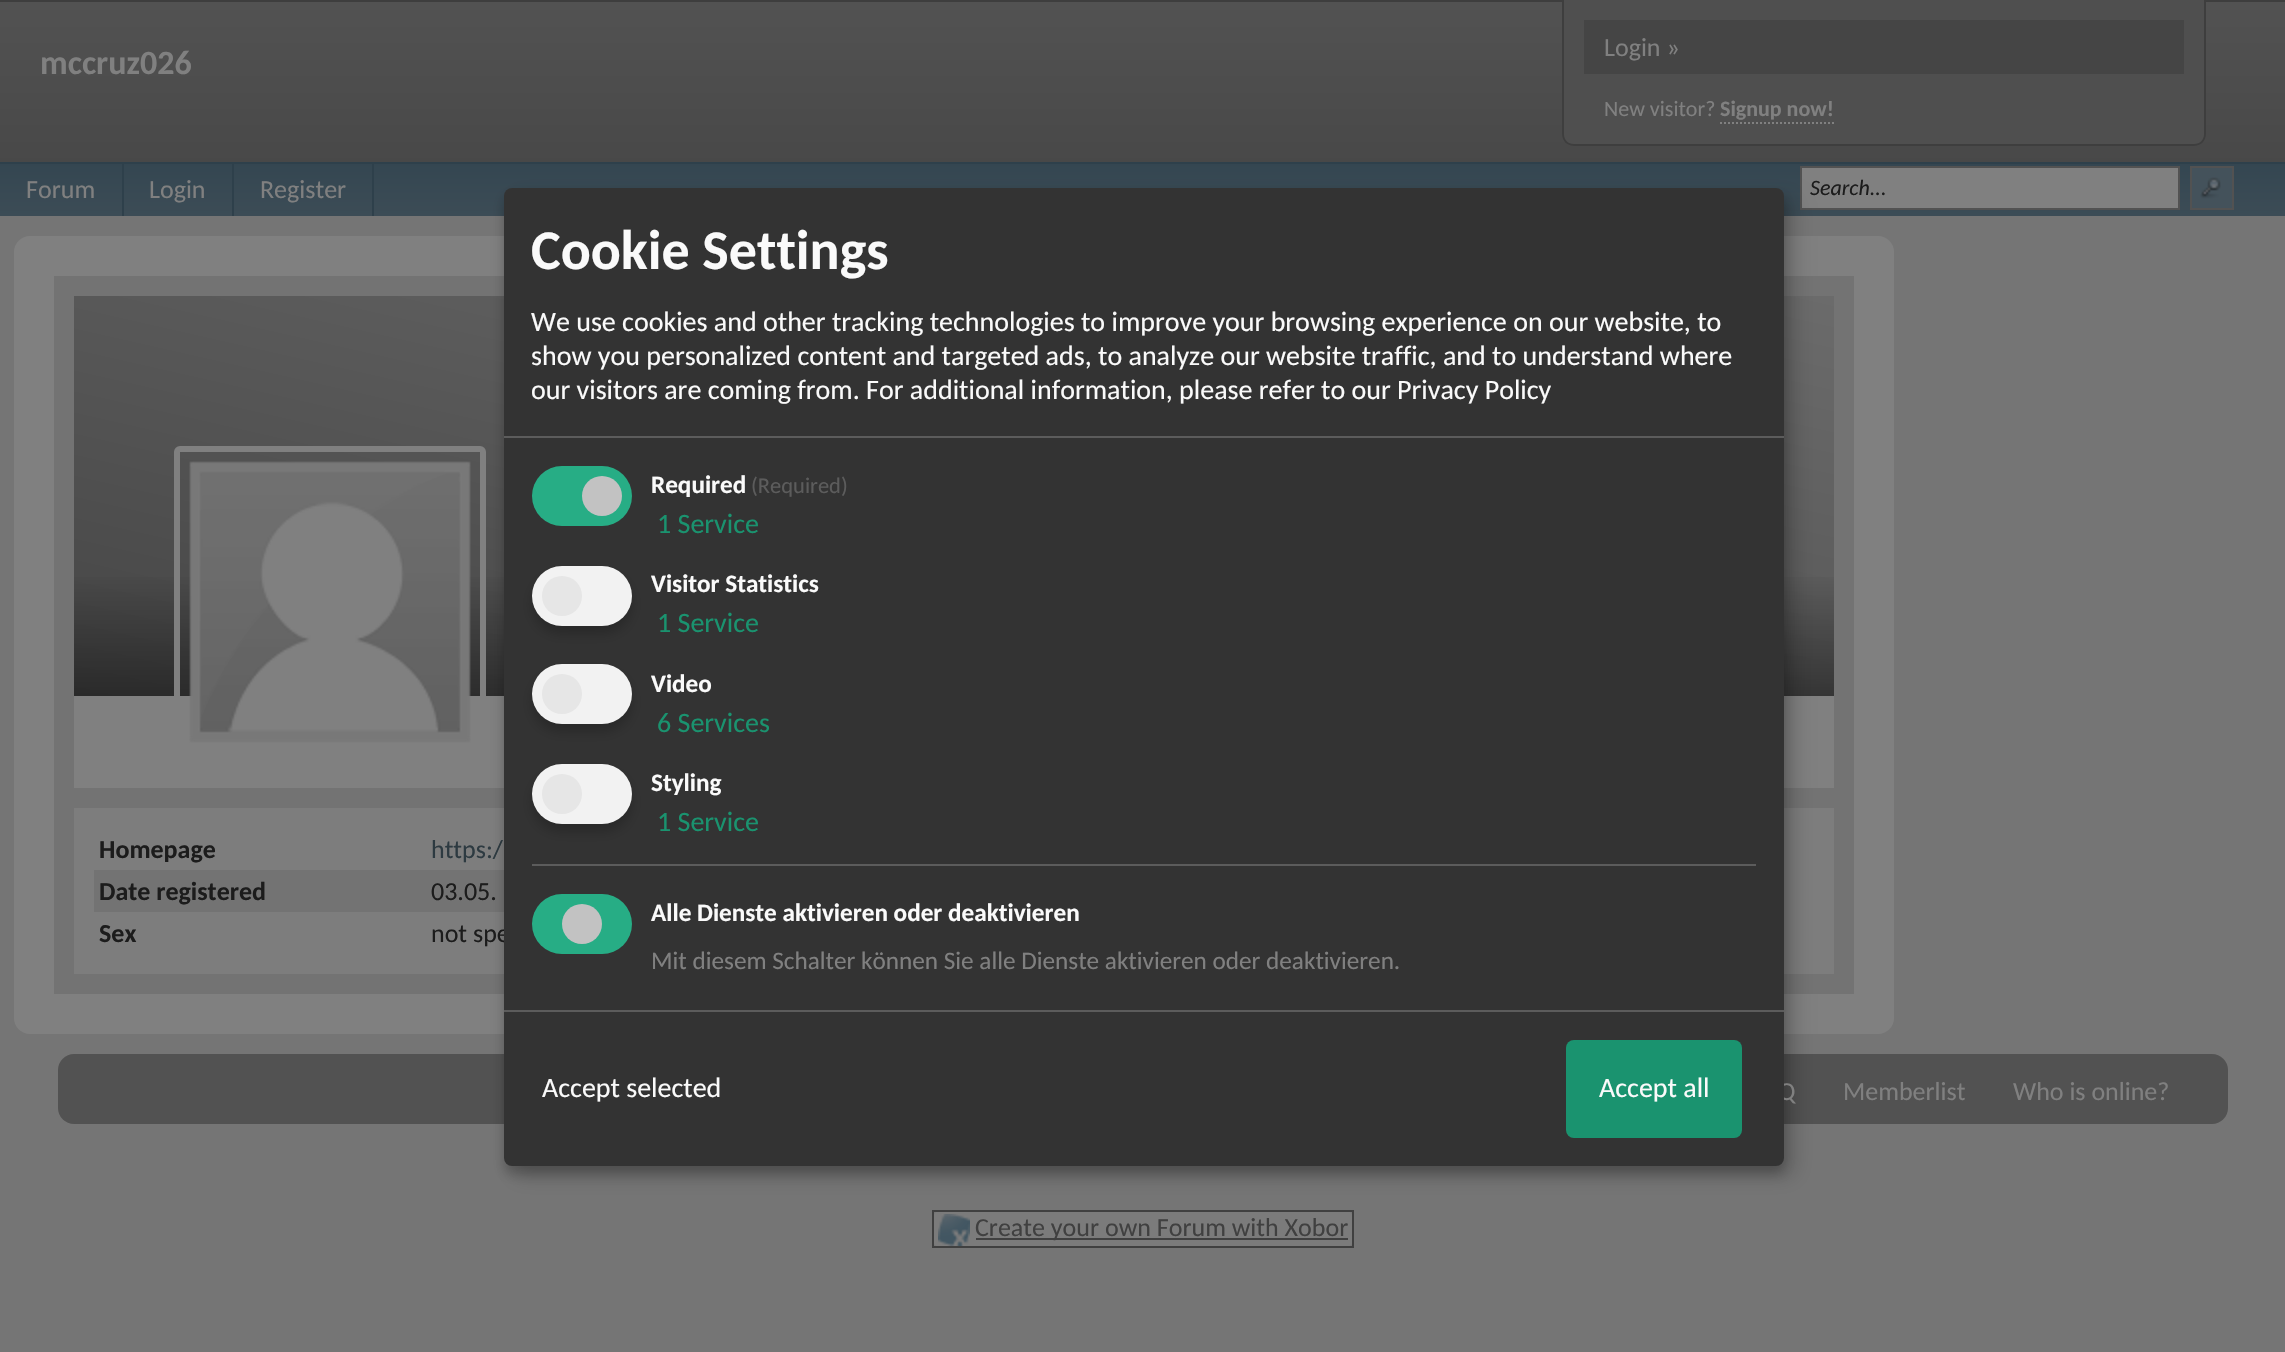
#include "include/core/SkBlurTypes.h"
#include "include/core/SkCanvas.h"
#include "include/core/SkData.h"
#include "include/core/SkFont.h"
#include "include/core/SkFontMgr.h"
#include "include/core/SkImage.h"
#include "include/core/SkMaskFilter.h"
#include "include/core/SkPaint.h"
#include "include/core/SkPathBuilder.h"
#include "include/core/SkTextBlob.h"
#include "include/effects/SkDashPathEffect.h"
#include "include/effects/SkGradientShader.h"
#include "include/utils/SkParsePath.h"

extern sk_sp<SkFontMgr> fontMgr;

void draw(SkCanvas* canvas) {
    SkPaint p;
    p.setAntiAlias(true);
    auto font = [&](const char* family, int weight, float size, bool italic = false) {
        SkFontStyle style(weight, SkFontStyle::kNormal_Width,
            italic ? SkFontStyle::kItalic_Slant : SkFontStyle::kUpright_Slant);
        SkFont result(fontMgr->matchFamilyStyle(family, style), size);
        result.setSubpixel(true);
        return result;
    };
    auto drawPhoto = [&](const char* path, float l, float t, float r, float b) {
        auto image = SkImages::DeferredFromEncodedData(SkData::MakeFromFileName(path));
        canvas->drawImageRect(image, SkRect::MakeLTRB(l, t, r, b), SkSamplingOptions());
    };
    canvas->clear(0xFF757575);
    p.setColor(0xFF3E3E3E);
    canvas->drawRect(SkRect::MakeLTRB(0, 0, 2285, 2), p);
    {
        const SkColor colors[] = {0xFF525252, 0xFF454545};
        const float stops[] = {0, 1};
        const SkPoint ends[] = {{0, 2}, {0, 216}};
        p.setShader(SkGradientShader::MakeLinear(ends, colors, stops, 2, SkTileMode::kClamp));
        p.setAlpha(255);
    }
    canvas->drawRect(SkRect::MakeLTRB(0, 2, 2285, 162), p);
    p.setShader(nullptr);
    p.setColor(0xFF4F4F4F);
    canvas->drawPath(SkPathBuilder().moveTo(1562, 0).lineTo(2206, 0).lineTo(2206, 134).cubicTo(2206, 140.5f, 2200.5f, 146, 2194, 146).lineTo(1574, 146).cubicTo(1567.5f, 146, 1562, 140.5f, 1562, 134).close().detach(), p);
    p.setColor(0xFF3E3E3E);
    canvas->drawPath(SkPathBuilder(SkPathFillType::kEvenOdd).moveTo(1562, 0).lineTo(2206, 0).lineTo(2206, 134).cubicTo(2206, 141, 2201, 146, 2194, 146).lineTo(1574, 146).cubicTo(1567, 146, 1562, 141, 1562, 134).close().moveTo(1564, 0).lineTo(2204, 0).lineTo(2204, 134).cubicTo(2204, 140, 2200, 144, 2194, 144).lineTo(1574, 144).cubicTo(1568, 144, 1564, 140, 1564, 134).close().detach(), p);
    p.setColor(0xFF454545);
    canvas->drawRect(SkRect::MakeLTRB(1584, 20, 2184, 74), p);
    auto font1 = font("Carlito", 400, 26);
    p.setColor(0xFF808080);
    canvas->drawString("Login »", 1604, 56, font1, p);
    auto font2 = font("Carlito", 400, 22);
    canvas->drawString("New visitor?", 1604, 116, font2, p);
    auto font3 = font("Carlito", 700, 22);
    canvas->drawString("Signup now!", 1720, 116, font3, p);
    p.setStyle(SkPaint::kStroke_Style);
    p.setStrokeWidth(2);
    p.setPathEffect(SkDashPathEffect::Make({{2, 2}}, 0));
    canvas->drawPath(SkPathBuilder().moveTo(1720, 123).lineTo(1834, 123).detach(), p);
    p.setPathEffect(nullptr);
    auto font4 = font("Carlito", 700, 34);
    p.setStyle(SkPaint::kFill_Style);
    canvas->drawString("mccruz026", 40, 74, font4, p);
    {
        const SkColor colors[] = {0xFF344651, 0xFF3C4C56};
        const float stops[] = {0, 1};
        const SkPoint ends[] = {{0, 162}, {0, 216}};
        p.setShader(SkGradientShader::MakeLinear(ends, colors, stops, 2, SkTileMode::kClamp));
        p.setAlpha(255);
    }
    canvas->drawRect(SkRect::MakeLTRB(0, 164, 2285, 216), p);
    p.setShader(nullptr);
    p.setColor(0xFF2E404B);
    canvas->drawRect(SkRect::MakeLTRB(0, 162, 2285, 164), p);
    p.setColor(0xFF808080);
    canvas->drawString("Forum", 26, 198, font1, p);
    p.setColor(0xFF2E404B);
    canvas->drawRect(SkRect::MakeLTRB(122, 162, 124, 216), p);
    p.setColor(0xFF808080);
    canvas->drawString("Login", 149, 198, font1, p);
    p.setColor(0xFF2E404B);
    canvas->drawRect(SkRect::MakeLTRB(372, 162, 374, 216), p);
    canvas->drawRect(SkRect::MakeLTRB(232, 162, 234, 216), p);
    p.setColor(0xFF808080);
    canvas->drawString("Register", 260, 198, font1, p);
    canvas->drawRect(SkRect::MakeLTRB(1801, 167, 2179, 209), p);
    p.setStyle(SkPaint::kStroke_Style);
    p.setColor(0xFF525252);
    canvas->drawRect(SkRect::MakeLTRB(1801, 167, 2179, 209), p);
    auto font5 = font("Carlito", 400, 22, true);
    p.setStyle(SkPaint::kFill_Style);
    p.setColor(0xFF1C1C1C);
    canvas->drawString("Search...", 1810, 195, font5, p);
    p.setColor(0xFF44525B);
    canvas->drawRect(SkRect::MakeLTRB(2192, 168, 2232, 208), p);
    drawPhoto("media/1.png", 2200, 177, 2221, 199);
    p.setStyle(SkPaint::kStroke_Style);
    p.setColor(0xFF525252);
    canvas->drawRect(SkRect::MakeLTRB(2191, 167, 2233, 209), p);
    p.setStyle(SkPaint::kFill_Style);
    p.setColor(0xFF808080);
    canvas->drawRoundRect(SkRect::MakeLTRB(14, 236, 1894, 1034), 16, 16, p);
    p.setColor(0xFF7D7D7D);
    canvas->drawRect(SkRect::MakeLTRB(74, 808, 1834, 974), p);
    p.setStyle(SkPaint::kStroke_Style);
    p.setStrokeWidth(20);
    p.setColor(0xFF737373);
    canvas->drawRect(SkRect::MakeLTRB(64, 286, 1844, 984), p);
    p.setStyle(SkPaint::kFill_Style);
    {
        const SkColor colors[] = {0xFF454545, 0xFF6B6B6B};
        const float stops[] = {0, 1};
        const SkPoint ends[] = {{868, 876}, {1040, 116}};
        p.setShader(SkGradientShader::MakeLinear(ends, colors, stops, 2, SkTileMode::kClamp));
        p.setAlpha(255);
    }
    canvas->drawRect(SkRect::MakeLTRB(74, 296, 1834, 696), p);
    {
        const SkColor colors[] = {0x66000000, 0x00000000};
        const float stops[] = {0, 1};
        const SkPoint ends[] = {{954, 696}, {954, 568}};
        p.setShader(SkGradientShader::MakeLinear(ends, colors, stops, 2, SkTileMode::kClamp));
        p.setAlpha(255);
    }
    canvas->drawRect(SkRect::MakeLTRB(74, 577, 1834, 696), p);
    p.setStyle(SkPaint::kStroke_Style);
    p.setStrokeWidth(6);
    p.setShader(nullptr);
    p.setColor(0xFF808080);
    canvas->drawRoundRect(SkRect::MakeLTRB(177, 449, 483, 755), 3, 3, p);
    drawPhoto("media/2.png", 189, 461, 471, 743);
    p.setStyle(SkPaint::kFill_Style);
    p.setColor(0xFF737373);
    canvas->drawRect(SkRect::MakeLTRB(1784, 788, 1834, 808), p);
    canvas->drawRect(SkRect::MakeLTRB(74, 788, 504, 808), p);
    auto font6 = font("Carlito", 700, 26);
    p.setColor(0xFF1C1C1C);
    canvas->drawString("Homepage", 99, 858, font6, p);
    p.setColor(0xFF2D3A41);
    canvas->drawString("https:/", 431, 858, font1, p);
    p.setColor(0xFF737373);
    canvas->drawRect(SkRect::MakeLTRB(94, 870, 504, 912), p);
    p.setColor(0xFF1C1C1C);
    canvas->drawString("Date registered", 99, 900, font6, p);
    canvas->drawString("03.05.", 431, 900, font1, p);
    canvas->drawString("Sex", 99, 942, font6, p);
    canvas->drawString("not spe", 431, 942, font1, p);
    p.setColor(0xFF525252);
    canvas->drawRoundRect(SkRect::MakeLTRB(58, 1054, 2228, 1124), 16, 16, p);
    p.setColor(0x30000000);
    p.setMaskFilter(SkMaskFilter::MakeBlur(kNormal_SkBlurStyle, 10));
    canvas->drawRoundRect(SkRect::MakeLTRB(514, 198, 1794, 1176), 8, 8, p);
    p.setMaskFilter(nullptr);
    p.setColor(0x33000000);
    p.setMaskFilter(SkMaskFilter::MakeBlur(kNormal_SkBlurStyle, 6));
    canvas->drawRoundRect(SkRect::MakeLTRB(504, 196, 1784, 1174), 8, 8, p);
    p.setMaskFilter(nullptr);
    p.setColor(0xFF808080);
    canvas->drawString("Q", 1778, 1100, font1, p);
    p.setColor(0xFF333333);
    canvas->drawRoundRect(SkRect::MakeLTRB(504, 188, 1784, 1166), 8, 8, p);
    p.setColor(0xFF5C5C5C);
    canvas->drawRect(SkRect::MakeLTRB(504, 436, 1784, 438), p);
    auto font7 = font("Carlito", 700, 56);
    p.setColor(0xFFFAFAFA);
    canvas->drawString("Cookie Settings", 531, 269, font7, p);
    auto font8 = font("Carlito", 400, 28);
    {
        const struct { const char* s; float x, y; } items[] = {
            {"We use cookies and other tracking technologies to improve your browsing experience on our website, to", 531, 331},
            {"show you personalized content and targeted ads, to analyze our website traffic, and to understand where", 531, 365},
            {"our visitors are coming from. For additional information, please refer to our Privacy Policy", 531, 399},
        };
        for (auto [s, x, y] : items) {
            canvas->drawString(s, x, y, font8, p);
        }
    }
    p.setColor(0xFF27AD85);
    canvas->drawRoundRect(SkRect::MakeLTRB(532, 466, 632, 526), 30, 30, p);
    p.setColor(0xFFC2C2C2);
    canvas->drawCircle(602, 496, 20, p);
    auto font9 = font("Carlito", 700, 25.2f);
    p.setColor(0xFFFAFAFA);
    canvas->drawString("Required", 651, 493, font9, p);
    auto font10 = font("Carlito", 400, 22.5f);
    p.setColor(0xFF5C5C5C);
    canvas->drawString("(Required)", 751, 493, font10, p);
    p.setColor(0xFF1A936F);
    canvas->drawString("1 Service", 657, 533, font8, p);
    p.setColor(0x33000000);
    p.setMaskFilter(SkMaskFilter::MakeBlur(kNormal_SkBlurStyle, 6));
    canvas->drawRoundRect(SkRect::MakeLTRB(532, 574, 632, 634), 30, 30, p);
    p.setMaskFilter(nullptr);
    p.setColor(0xFFF2F2F2);
    canvas->drawRoundRect(SkRect::MakeLTRB(532, 566, 632, 626), 30, 30, p);
    p.setColor(0xFFE6E6E6);
    canvas->drawCircle(562, 596, 20, p);
    p.setColor(0xFFFAFAFA);
    canvas->drawString("Visitor Statistics", 651, 592, font9, p);
    p.setColor(0xFF1A936F);
    canvas->drawString("1 Service", 657, 632, font8, p);
    p.setColor(0x33000000);
    p.setMaskFilter(SkMaskFilter::MakeBlur(kNormal_SkBlurStyle, 6));
    canvas->drawRoundRect(SkRect::MakeLTRB(532, 672, 632, 732), 30, 30, p);
    p.setMaskFilter(nullptr);
    p.setColor(0xFFF2F2F2);
    canvas->drawRoundRect(SkRect::MakeLTRB(532, 664, 632, 724), 30, 30, p);
    p.setColor(0xFFE6E6E6);
    canvas->drawCircle(562, 694, 20, p);
    p.setColor(0xFFFAFAFA);
    canvas->drawString("Video", 651, 692, font9, p);
    p.setColor(0xFF1A936F);
    canvas->drawString("6 Services", 657, 732, font8, p);
    p.setColor(0x33000000);
    p.setMaskFilter(SkMaskFilter::MakeBlur(kNormal_SkBlurStyle, 6));
    canvas->drawRoundRect(SkRect::MakeLTRB(532, 772, 632, 832), 30, 30, p);
    p.setMaskFilter(nullptr);
    p.setColor(0xFFF2F2F2);
    canvas->drawRoundRect(SkRect::MakeLTRB(532, 764, 632, 824), 30, 30, p);
    p.setColor(0xFFE6E6E6);
    canvas->drawCircle(562, 794, 20, p);
    p.setColor(0xFFFAFAFA);
    canvas->drawString("Styling", 651, 791, font9, p);
    p.setColor(0xFF1A936F);
    canvas->drawString("1 Service", 657, 831, font8, p);
    p.setColor(0xFF5C5C5C);
    canvas->drawRect(SkRect::MakeLTRB(532, 864, 1756, 866), p);
    p.setColor(0xFF27AD85);
    canvas->drawRoundRect(SkRect::MakeLTRB(532, 894, 632, 954), 30, 30, p);
    p.setColor(0xFFC2C2C2);
    canvas->drawCircle(582, 924, 20, p);
    p.setColor(0xFFFAFAFA);
    canvas->drawString("Alle Dienste aktivieren oder deaktivieren", 651, 921, font9, p);
    auto font11 = font("Carlito", 400, 25.2f);
    p.setColor(0xFF808080);
    canvas->drawString("Mit diesem Schalter können Sie alle Dienste aktivieren oder deaktivieren.", 651, 969, font11, p);
    p.setColor(0xFF5C5C5C);
    canvas->drawRect(SkRect::MakeLTRB(504, 1010, 1784, 1012), p);
    p.setColor(0xFFFAFAFA);
    canvas->drawString("Accept selected", 542, 1097, font8, p);
    p.setColor(0xFF1A936F);
    canvas->drawRoundRect(SkRect::MakeLTRB(1566, 1040, 1742, 1138), 8, 8, p);
    p.setColor(0xFFFAFAFA);
    canvas->drawString("Accept all", 1599, 1097, font8, p);
    p.setColor(0xFF808080);
    canvas->drawString("Memberlist", 1843, 1100, font1, p);
    canvas->drawString("Who is online?", 2013, 1100, font1, p);
    p.setColor(0xFF7B7B7B);
    canvas->drawRoundRect(SkRect::MakeLTRB(932, 1210, 1354, 1248), 10, 10, p);
    {
        const struct { float l, t, r, b; SkColor color; } items[] = {
            {932, 1210, 1354, 1212, 0xFF404040},
            {1352, 1210, 1354, 1248, 0xFF404040},
            {932, 1246, 1354, 1248, 0xFF404040},
            {932, 1210, 934, 1248, 0xFF404040},
        };
        for (auto [l, t, r, b, color] : items) {
            p.setColor(color);
            canvas->drawRect(SkRect::MakeLTRB(l, t, r, b), p);
        }
    }
    drawPhoto("media/3.png", 938, 1214, 970, 1246);
    canvas->drawRect(SkRect::MakeLTRB(976, 1238, 1348, 1240), p);
    canvas->drawString("Create your own Forum with Xobor", 975, 1236, font1, p);
}
